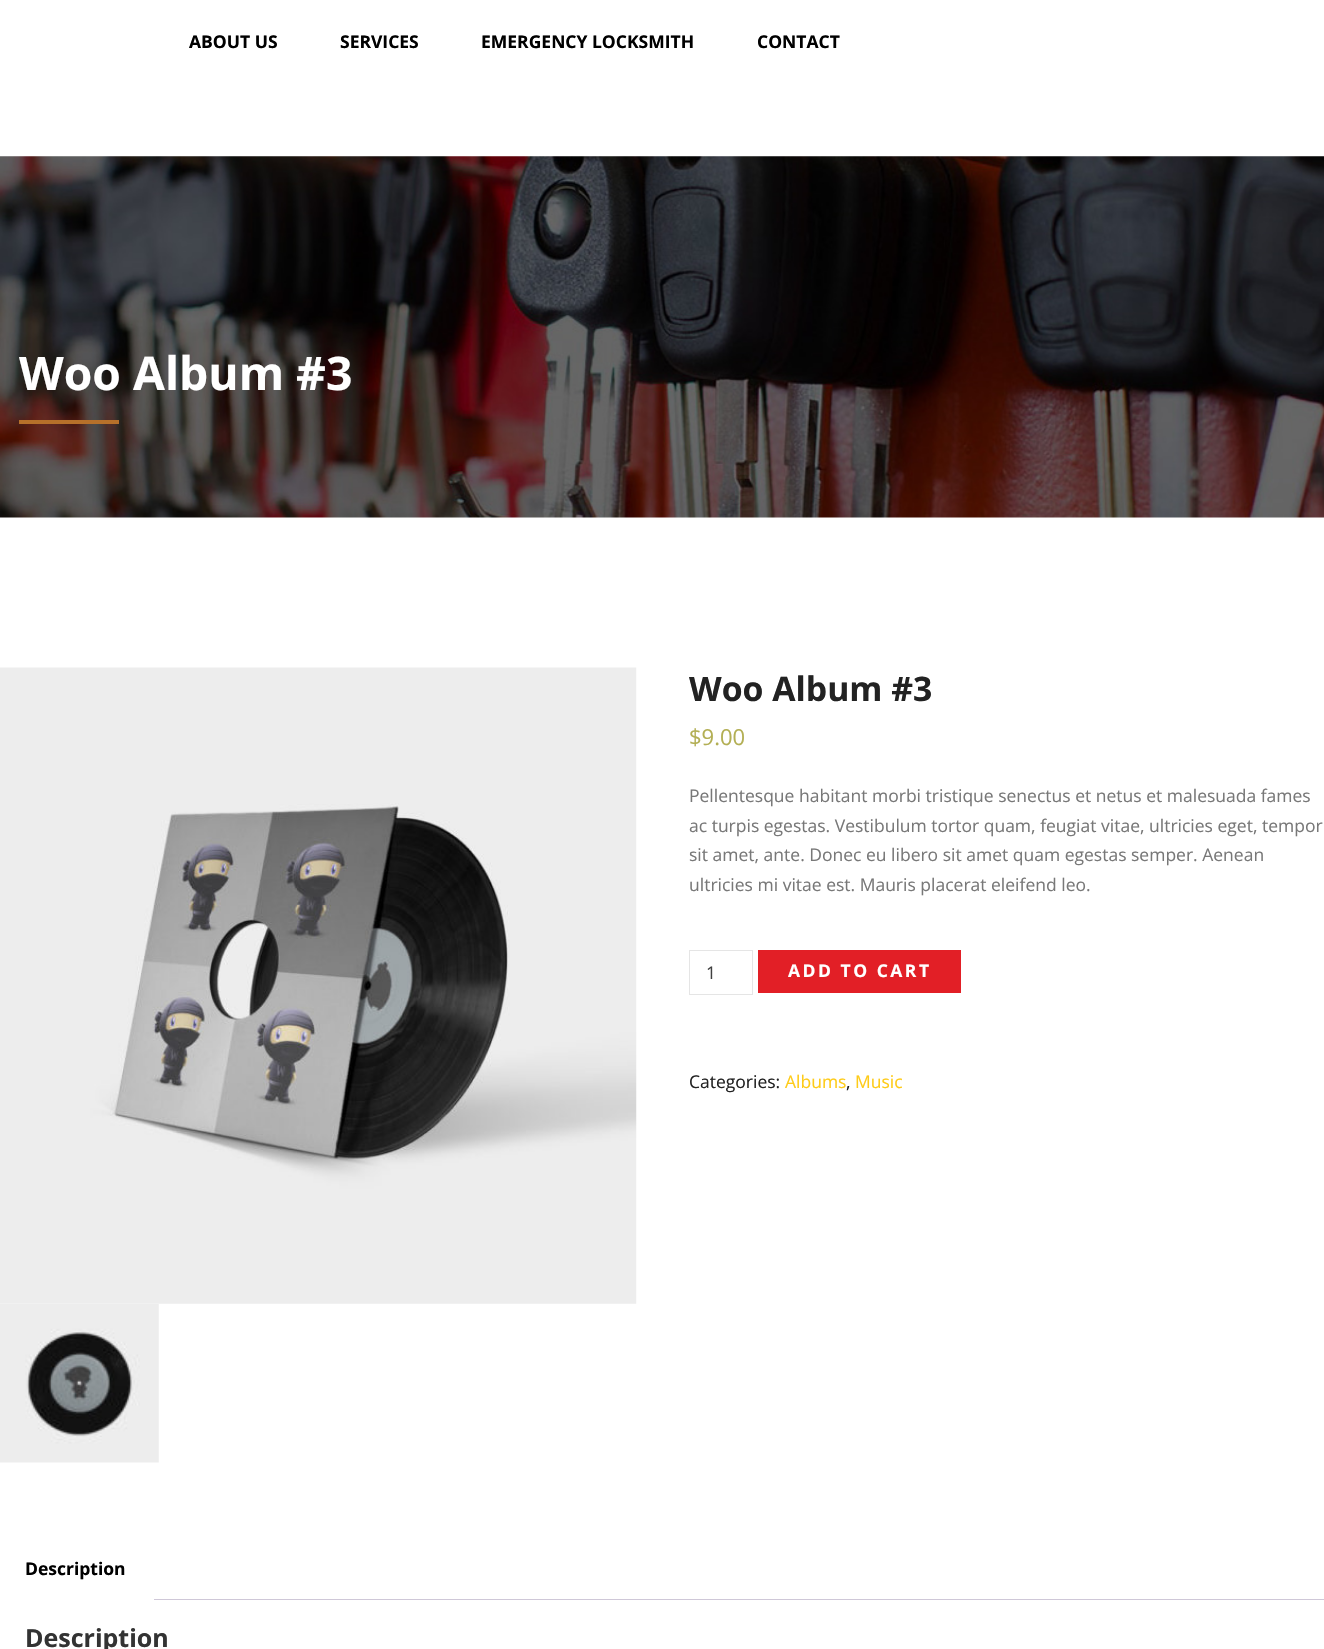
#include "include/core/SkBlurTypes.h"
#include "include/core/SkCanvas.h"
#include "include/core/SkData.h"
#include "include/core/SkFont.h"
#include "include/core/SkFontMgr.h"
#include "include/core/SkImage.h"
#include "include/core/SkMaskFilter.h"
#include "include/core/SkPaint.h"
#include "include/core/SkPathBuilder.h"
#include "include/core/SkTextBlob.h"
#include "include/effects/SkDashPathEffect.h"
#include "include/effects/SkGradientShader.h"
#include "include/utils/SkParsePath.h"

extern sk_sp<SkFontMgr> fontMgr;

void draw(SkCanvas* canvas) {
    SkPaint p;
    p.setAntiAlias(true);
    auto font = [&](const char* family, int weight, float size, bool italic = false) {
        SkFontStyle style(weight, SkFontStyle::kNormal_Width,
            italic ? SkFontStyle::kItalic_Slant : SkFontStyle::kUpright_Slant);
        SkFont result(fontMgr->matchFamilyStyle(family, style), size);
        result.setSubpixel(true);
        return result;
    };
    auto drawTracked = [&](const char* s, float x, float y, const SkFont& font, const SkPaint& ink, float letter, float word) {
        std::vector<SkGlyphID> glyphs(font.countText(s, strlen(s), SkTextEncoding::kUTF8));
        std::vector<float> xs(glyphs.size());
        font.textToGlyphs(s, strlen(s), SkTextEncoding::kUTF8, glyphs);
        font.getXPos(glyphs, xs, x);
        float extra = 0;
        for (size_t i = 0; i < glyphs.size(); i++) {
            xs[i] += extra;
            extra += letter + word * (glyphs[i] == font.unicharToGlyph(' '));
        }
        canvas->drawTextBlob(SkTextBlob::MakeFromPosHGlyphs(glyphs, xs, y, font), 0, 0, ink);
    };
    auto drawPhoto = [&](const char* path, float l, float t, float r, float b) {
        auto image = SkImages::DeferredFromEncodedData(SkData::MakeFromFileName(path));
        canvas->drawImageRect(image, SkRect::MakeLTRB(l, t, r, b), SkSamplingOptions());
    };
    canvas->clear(0xFFFFFFFF);
    auto font1 = font("Open Sans", 700, 17.5f);
    p.setColor(0xFF000000);
    {
        const struct { const char* s; float x, y; } items[] = {
            {"ABOUT US", 189, 48},
            {"SERVICES", 340, 48},
            {"EMERGENCY LOCKSMITH", 481, 48},
            {"CONTACT", 757, 48},
        };
        for (auto [s, x, y] : items) {
            canvas->drawString(s, x, y, font1, p);
        }
    }
    drawPhoto("media/1.png", 0, 156, 1324, 518);
    auto font2 = font("Open Sans", 700, 46.25f);
    p.setColor(0xFFFFFFFF);
    canvas->drawString("Woo Album #3", 19, 390, font2, p);
    p.setColor(0xFFB6702A);
    canvas->drawRect(SkRect::MakeLTRB(19, 420, 119, 424), p);
    drawPhoto("media/2.png", 0, 667, 637, 1304);
    drawPhoto("media/3.png", 0, 1304, 159, 1463);
    auto font3 = font("Open Sans", 700, 33.75f);
    p.setColor(0xFF222222);
    canvas->drawString("Woo Album #3", 689, 701, font3, p);
    auto font4 = font("Open Sans", 400, 22);
    p.setColor(0xFFB3AF54);
    canvas->drawString("$9.00", 689, 745, font4, p);
    auto font5 = font("Open Sans", 400, 17.5f);
    p.setColor(0xFF787878);
    {
        const struct { const char* s; float x, y; } items[] = {
            {"Pellentesque habitant morbi tristique senectus et netus et malesuada fames", 689, 802},
            {"ac turpis egestas. Vestibulum tortor quam, feugiat vitae, ultricies eget, tempor", 689, 832},
            {"sit amet, ante. Donec eu libero sit amet quam egestas semper. Aenean", 689, 861},
            {"ultricies mi vitae est. Mauris placerat eleifend leo.", 689, 891},
        };
        for (auto [s, x, y] : items) {
            canvas->drawString(s, x, y, font5, p);
        }
    }
    p.setStyle(SkPaint::kStroke_Style);
    p.setStrokeWidth(1);
    p.setColor(0xFFE5E5E5);
    canvas->drawRect(SkRect::MakeLTRB(689.5f, 950.5f, 752.5f, 994.5f), p);
    p.setStyle(SkPaint::kFill_Style);
    p.setColor(0xFF404040);
    canvas->drawString("1", 706, 979, font5, p);
    p.setColor(0xFFE21F26);
    canvas->drawRect(SkRect::MakeLTRB(758, 950, 961, 993), p);
    p.setColor(0xFFFFFFFF);
    drawTracked("ADD TO CART", 788, 977, font1, p, 2.5f, 0);
    p.setColor(0xFF222222);
    canvas->drawString("Categories:", 689, 1088, font5, p);
    p.setColor(0xFFFECB18);
    canvas->drawString("Albums", 785, 1088, font5, p);
    p.setColor(0xFF222222);
    canvas->drawString(",", 846, 1088, font5, p);
    p.setColor(0xFFFECB18);
    canvas->drawString("Music", 855, 1088, font5, p);
    p.setColor(0xFF000000);
    canvas->drawString("Description", 25, 1575, font1, p);
    p.setColor(0xFFCFC8D8);
    canvas->drawRect(SkRect::MakeLTRB(154, 1599, 1324, 1600), p);
    auto font6 = font("Open Sans", 700, 25);
    p.setColor(0xFF333333);
    canvas->drawString("Description", 25, 1647, font6, p);
}
